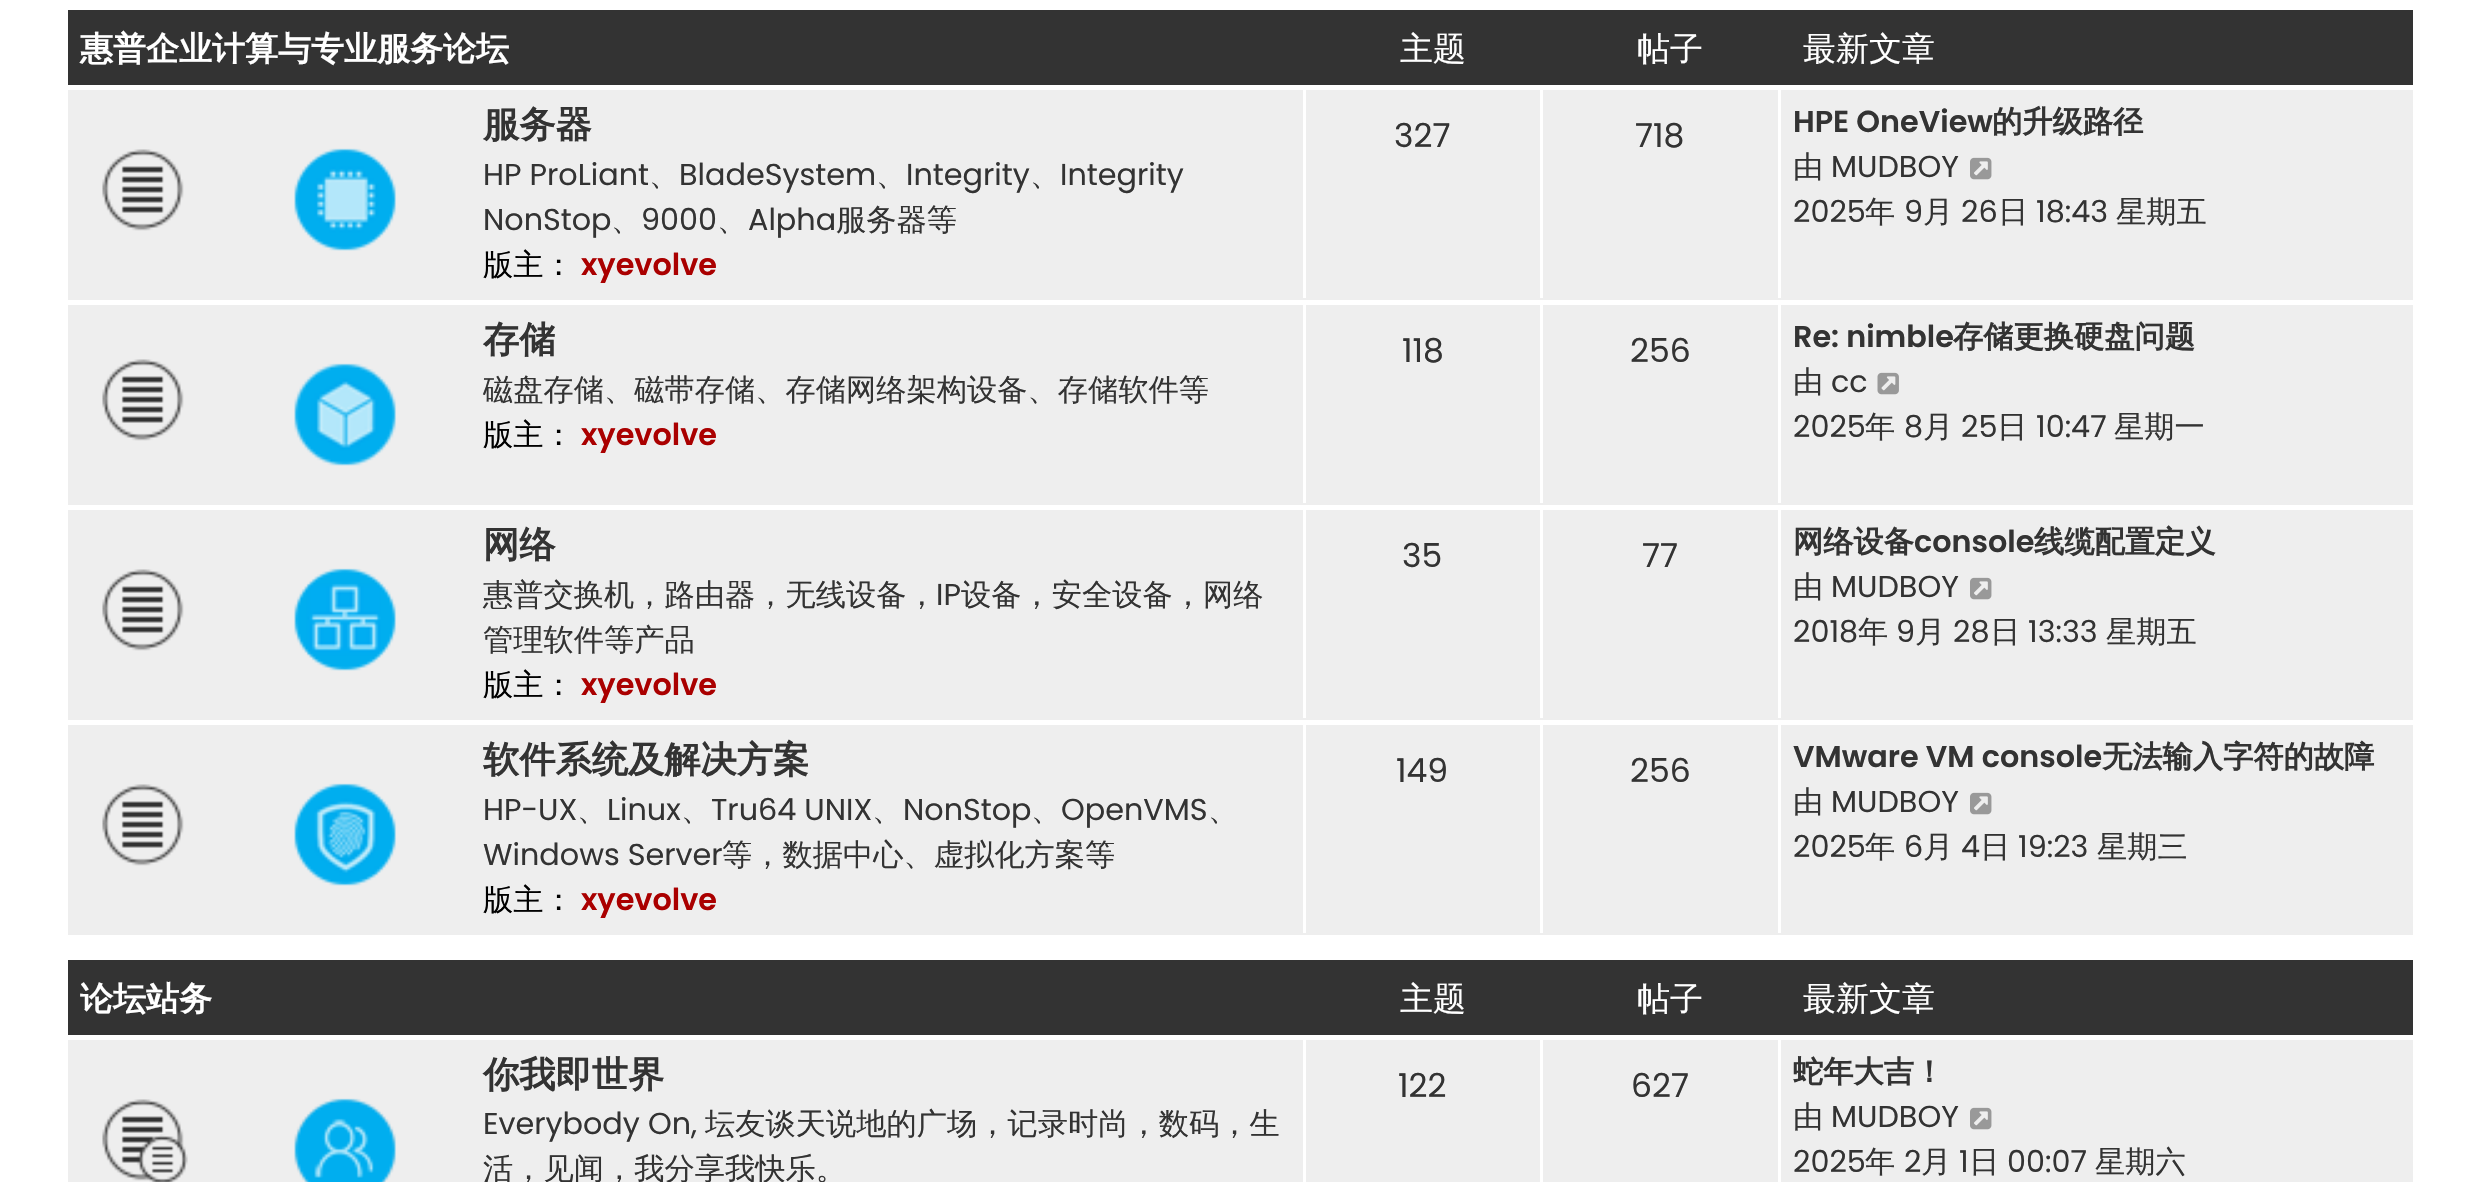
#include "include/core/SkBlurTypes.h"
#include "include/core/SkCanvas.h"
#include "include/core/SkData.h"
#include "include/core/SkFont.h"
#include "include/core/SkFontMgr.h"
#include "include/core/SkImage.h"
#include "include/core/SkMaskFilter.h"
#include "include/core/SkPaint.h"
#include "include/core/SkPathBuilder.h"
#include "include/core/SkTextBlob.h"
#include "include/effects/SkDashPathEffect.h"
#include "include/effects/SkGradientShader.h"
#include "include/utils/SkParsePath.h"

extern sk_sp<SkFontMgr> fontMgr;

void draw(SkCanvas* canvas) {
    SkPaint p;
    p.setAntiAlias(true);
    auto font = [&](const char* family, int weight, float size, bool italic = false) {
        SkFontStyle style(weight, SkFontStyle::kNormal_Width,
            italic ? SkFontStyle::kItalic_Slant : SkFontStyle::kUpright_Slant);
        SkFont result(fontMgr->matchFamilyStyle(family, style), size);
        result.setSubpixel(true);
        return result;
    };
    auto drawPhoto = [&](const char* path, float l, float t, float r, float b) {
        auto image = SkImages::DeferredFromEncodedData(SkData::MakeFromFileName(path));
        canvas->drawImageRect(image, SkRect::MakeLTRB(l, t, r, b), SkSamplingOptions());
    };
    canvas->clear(0xFFFFFFFF);
    p.setColor(0xFF333333);
    canvas->drawRect(SkRect::MakeLTRB(68, 10, 2413, 85), p);
    auto font1 = font("WenQuanYi Zen Hei", 700, 33);
    p.setColor(0xFFFFFFFF);
    canvas->drawString("惠普企业计算与专业服务论坛", 80, 60, font1, p);
    auto font2 = font("WenQuanYi Zen Hei", 500, 33);
    {
        const struct { const char* s; float x, y; } items[] = {
            {"主题", 1400, 60},
            {"帖子", 1637, 60},
            {"最新文章", 1803, 60},
        };
        for (auto [s, x, y] : items) {
            canvas->drawString(s, x, y, font2, p);
        }
    }
    p.setColor(0xFFEEEEEE);
    canvas->drawRect(SkRect::MakeLTRB(68, 90, 2413, 935), p);
    drawPhoto("media/1.png", 102, 149, 184, 231);
    auto font3 = font("WenQuanYi Zen Hei", 700, 36.25f);
    p.setColor(0xFF333333);
    canvas->drawString("服务器", 483, 137, font3, p);
    drawPhoto("media/2.png", 294, 148, 396, 251);
    auto font4 = font("Poppins", 400, 30.25f);
    canvas->drawString("HP ProLiant", 483, 185, font4, p);
    auto font5 = font("WenQuanYi Zen Hei", 500, 30.25f);
    canvas->drawString("、", 649, 185, font5, p);
    canvas->drawString("BladeSystem", 679, 185, font4, p);
    canvas->drawString("、", 876, 185, font5, p);
    canvas->drawString("Integrity", 906, 185, font4, p);
    canvas->drawString("、", 1030, 185, font5, p);
    canvas->drawString("Integrity", 1060, 185, font4, p);
    canvas->drawString("NonStop", 483, 230, font4, p);
    canvas->drawString("、", 611, 230, font5, p);
    canvas->drawString("9000", 641, 230, font4, p);
    canvas->drawString("、", 717, 230, font5, p);
    canvas->drawString("Alpha", 748, 230, font4, p);
    canvas->drawString("服务器等", 836, 230, font5, p);
    p.setColor(0xFF000000);
    canvas->drawString("版主：", 483, 275, font5, p);
    auto font6 = font("Poppins", 600, 30.25f);
    p.setColor(0xFFAA0000);
    canvas->drawString("xyevolve", 581, 275, font6, p);
    p.setColor(0xFFFFFFFF);
    canvas->drawRect(SkRect::MakeLTRB(1303, 90, 1306, 298), p);
    auto font7 = font("Poppins", 400, 33);
    p.setColor(0xFF333333);
    canvas->drawString("327", 1394, 147, font7, p);
    p.setColor(0xFFFFFFFF);
    canvas->drawRect(SkRect::MakeLTRB(1540, 90, 1543, 298), p);
    p.setColor(0xFF333333);
    canvas->drawString("718", 1635, 147, font7, p);
    p.setColor(0xFFFFFFFF);
    canvas->drawRect(SkRect::MakeLTRB(1778, 90, 1781, 298), p);
    p.setColor(0xFF333333);
    canvas->drawString("HPE OneView", 1793, 132, font6, p);
    auto font8 = font("WenQuanYi Zen Hei", 700, 30.25f);
    canvas->drawString("的升级路径", 1992, 132, font8, p);
    canvas->drawString("由", 1793, 177, font5, p);
    canvas->drawString("MUDBOY", 1831, 177, font4, p);
    drawPhoto("media/3.png", 1970, 157, 1992, 180);
    canvas->drawString("2025", 1793, 222, font4, p);
    canvas->drawString("年", 1865, 222, font5, p);
    canvas->drawString("9", 1904, 222, font4, p);
    canvas->drawString("月", 1923, 222, font5, p);
    canvas->drawString("26", 1961, 222, font4, p);
    canvas->drawString("日", 1998, 222, font5, p);
    canvas->drawString("18:43", 2036, 222, font4, p);
    canvas->drawString("星期五", 2116, 222, font5, p);
    p.setColor(0xFFFFFFFF);
    canvas->drawRect(SkRect::MakeLTRB(68, 300, 2413, 305), p);
    drawPhoto("media/1.png", 102, 359, 184, 441);
    p.setColor(0xFF333333);
    canvas->drawString("存储", 483, 352, font3, p);
    drawPhoto("media/4.png", 294, 363, 396, 466);
    canvas->drawString("磁盘存储、磁带存储、存储网络架构设备、存储软件等", 483, 400, font5, p);
    p.setColor(0xFF000000);
    canvas->drawString("版主：", 483, 445, font5, p);
    p.setColor(0xFFAA0000);
    canvas->drawString("xyevolve", 581, 445, font6, p);
    p.setColor(0xFFFFFFFF);
    canvas->drawRect(SkRect::MakeLTRB(1303, 305, 1306, 503), p);
    p.setColor(0xFF333333);
    canvas->drawString("118", 1402, 362, font7, p);
    p.setColor(0xFFFFFFFF);
    canvas->drawRect(SkRect::MakeLTRB(1540, 305, 1543, 503), p);
    p.setColor(0xFF333333);
    canvas->drawString("256", 1630, 362, font7, p);
    p.setColor(0xFFFFFFFF);
    canvas->drawRect(SkRect::MakeLTRB(1778, 305, 1781, 503), p);
    p.setColor(0xFF333333);
    canvas->drawString("Re: nimble", 1793, 347, font6, p);
    canvas->drawString("存储更换硬盘问题", 1953, 347, font8, p);
    canvas->drawString("由", 1793, 392, font5, p);
    canvas->drawString("cc", 1831, 392, font4, p);
    drawPhoto("media/5.png", 1877, 372, 1899, 395);
    canvas->drawString("2025", 1793, 437, font4, p);
    canvas->drawString("年", 1865, 437, font5, p);
    canvas->drawString("8", 1904, 437, font4, p);
    canvas->drawString("月", 1923, 437, font5, p);
    canvas->drawString("25", 1961, 437, font4, p);
    canvas->drawString("日", 1997, 437, font5, p);
    canvas->drawString("10:47", 2036, 437, font4, p);
    canvas->drawString("星期一", 2114, 437, font5, p);
    p.setColor(0xFFFFFFFF);
    canvas->drawRect(SkRect::MakeLTRB(68, 505, 2413, 510), p);
    drawPhoto("media/1.png", 102, 569, 184, 651);
    p.setColor(0xFF333333);
    canvas->drawString("网络", 483, 557, font3, p);
    drawPhoto("media/6.png", 294, 568, 396, 671);
    canvas->drawString("惠普交换机，路由器，无线设备，", 483, 605, font5, p);
    canvas->drawString("IP", 936, 605, font4, p);
    canvas->drawString("设备，安全设备，网络", 961, 605, font5, p);
    canvas->drawString("管理软件等产品", 483, 650, font5, p);
    p.setColor(0xFF000000);
    canvas->drawString("版主：", 483, 695, font5, p);
    p.setColor(0xFFAA0000);
    canvas->drawString("xyevolve", 581, 695, font6, p);
    p.setColor(0xFFFFFFFF);
    canvas->drawRect(SkRect::MakeLTRB(1303, 510, 1306, 718), p);
    p.setColor(0xFF333333);
    canvas->drawString("35", 1402, 567, font7, p);
    p.setColor(0xFFFFFFFF);
    canvas->drawRect(SkRect::MakeLTRB(1540, 510, 1543, 718), p);
    p.setColor(0xFF333333);
    canvas->drawString("77", 1642, 567, font7, p);
    p.setColor(0xFFFFFFFF);
    canvas->drawRect(SkRect::MakeLTRB(1778, 510, 1781, 718), p);
    p.setColor(0xFF333333);
    canvas->drawString("网络设备", 1793, 552, font8, p);
    canvas->drawString("console", 1914, 552, font6, p);
    canvas->drawString("线缆配置定义", 2034, 552, font8, p);
    canvas->drawString("由", 1793, 597, font5, p);
    canvas->drawString("MUDBOY", 1831, 597, font4, p);
    drawPhoto("media/3.png", 1970, 577, 1992, 600);
    canvas->drawString("2018", 1793, 642, font4, p);
    canvas->drawString("年", 1858, 642, font5, p);
    canvas->drawString("9", 1896, 642, font4, p);
    canvas->drawString("月", 1915, 642, font5, p);
    canvas->drawString("28", 1953, 642, font4, p);
    canvas->drawString("日", 1990, 642, font5, p);
    canvas->drawString("13:33", 2028, 642, font4, p);
    canvas->drawString("星期五", 2106, 642, font5, p);
    p.setColor(0xFFFFFFFF);
    canvas->drawRect(SkRect::MakeLTRB(68, 720, 2413, 725), p);
    drawPhoto("media/1.png", 102, 784, 184, 866);
    p.setColor(0xFF333333);
    canvas->drawString("软件系统及解决方案", 483, 772, font3, p);
    drawPhoto("media/7.png", 294, 783, 396, 886);
    canvas->drawString("HP-UX", 483, 820, font4, p);
    canvas->drawString("、", 577, 820, font5, p);
    canvas->drawString("Linux", 607, 820, font4, p);
    canvas->drawString("、", 681, 820, font5, p);
    canvas->drawString("Tru64 UNIX", 711, 820, font4, p);
    canvas->drawString("、", 872, 820, font5, p);
    canvas->drawString("NonStop", 903, 820, font4, p);
    canvas->drawString("、", 1031, 820, font5, p);
    canvas->drawString("OpenVMS", 1061, 820, font4, p);
    canvas->drawString("、", 1208, 820, font5, p);
    canvas->drawString("Windows Server", 483, 865, font4, p);
    canvas->drawString("等，数据中心、虚拟化方案等", 722, 865, font5, p);
    p.setColor(0xFF000000);
    canvas->drawString("版主：", 483, 910, font5, p);
    p.setColor(0xFFAA0000);
    canvas->drawString("xyevolve", 581, 910, font6, p);
    p.setColor(0xFFFFFFFF);
    canvas->drawRect(SkRect::MakeLTRB(1303, 725, 1306, 933), p);
    p.setColor(0xFF333333);
    canvas->drawString("149", 1396, 782, font7, p);
    p.setColor(0xFFFFFFFF);
    canvas->drawRect(SkRect::MakeLTRB(1540, 725, 1543, 933), p);
    p.setColor(0xFF333333);
    canvas->drawString("256", 1630, 782, font7, p);
    p.setColor(0xFFFFFFFF);
    canvas->drawRect(SkRect::MakeLTRB(1778, 725, 1781, 933), p);
    p.setColor(0xFF333333);
    canvas->drawString("VMware VM console", 1793, 767, font6, p);
    canvas->drawString("无法输入字符的故障", 2102, 767, font8, p);
    canvas->drawString("由", 1793, 812, font5, p);
    canvas->drawString("MUDBOY", 1831, 812, font4, p);
    drawPhoto("media/3.png", 1970, 792, 1992, 815);
    canvas->drawString("2025", 1793, 857, font4, p);
    canvas->drawString("年", 1865, 857, font5, p);
    canvas->drawString("6", 1904, 857, font4, p);
    canvas->drawString("月", 1923, 857, font5, p);
    canvas->drawString("4", 1961, 857, font4, p);
    canvas->drawString("日", 1980, 857, font5, p);
    canvas->drawString("19:23", 2018, 857, font4, p);
    canvas->drawString("星期三", 2097, 857, font5, p);
    canvas->drawRect(SkRect::MakeLTRB(68, 960, 2413, 1035), p);
    p.setColor(0xFFFFFFFF);
    canvas->drawString("论坛站务", 80, 1010, font1, p);
    {
        const struct { const char* s; float x, y; } items[] = {
            {"主题", 1400, 1010},
            {"帖子", 1637, 1010},
            {"最新文章", 1803, 1010},
        };
        for (auto [s, x, y] : items) {
            canvas->drawString(s, x, y, font2, p);
        }
    }
    p.setColor(0xFFEEEEEE);
    canvas->drawRect(SkRect::MakeLTRB(68, 1040, 2413, 1182), p);
    drawPhoto("media/8.png", 102, 1099, 188, 1182);
    p.setColor(0xFF333333);
    canvas->drawString("你我即世界", 483, 1087, font3, p);
    drawPhoto("media/9.png", 294, 1098, 396, 1182);
    canvas->drawString("Everybody On,", 483, 1134, font4, p);
    canvas->drawString("坛友谈天说地的广场，记录时尚，数码，生", 705, 1134, font5, p);
    canvas->drawString("活，见闻，我分享我快乐。", 483, 1179, font5, p);
    p.setColor(0xFFFFFFFF);
    canvas->drawRect(SkRect::MakeLTRB(1303, 1040, 1306, 1182), p);
    p.setColor(0xFF333333);
    canvas->drawString("122", 1398, 1097, font7, p);
    p.setColor(0xFFFFFFFF);
    canvas->drawRect(SkRect::MakeLTRB(1540, 1040, 1543, 1182), p);
    p.setColor(0xFF333333);
    canvas->drawString("627", 1631, 1097, font7, p);
    p.setColor(0xFFFFFFFF);
    canvas->drawRect(SkRect::MakeLTRB(1778, 1040, 1781, 1182), p);
    p.setColor(0xFF333333);
    canvas->drawString("蛇年大吉！", 1793, 1082, font8, p);
    canvas->drawString("由", 1793, 1127, font5, p);
    canvas->drawString("MUDBOY", 1831, 1127, font4, p);
    drawPhoto("media/3.png", 1970, 1107, 1992, 1130);
    canvas->drawString("2025", 1793, 1172, font4, p);
    canvas->drawString("年", 1865, 1172, font5, p);
    canvas->drawString("2", 1904, 1172, font4, p);
    canvas->drawString("月", 1921, 1172, font5, p);
    canvas->drawString("1", 1959, 1172, font4, p);
    canvas->drawString("日", 1969, 1172, font5, p);
    canvas->drawString("00:07", 2007, 1172, font4, p);
    canvas->drawString("星期六", 2095, 1172, font5, p);
}
